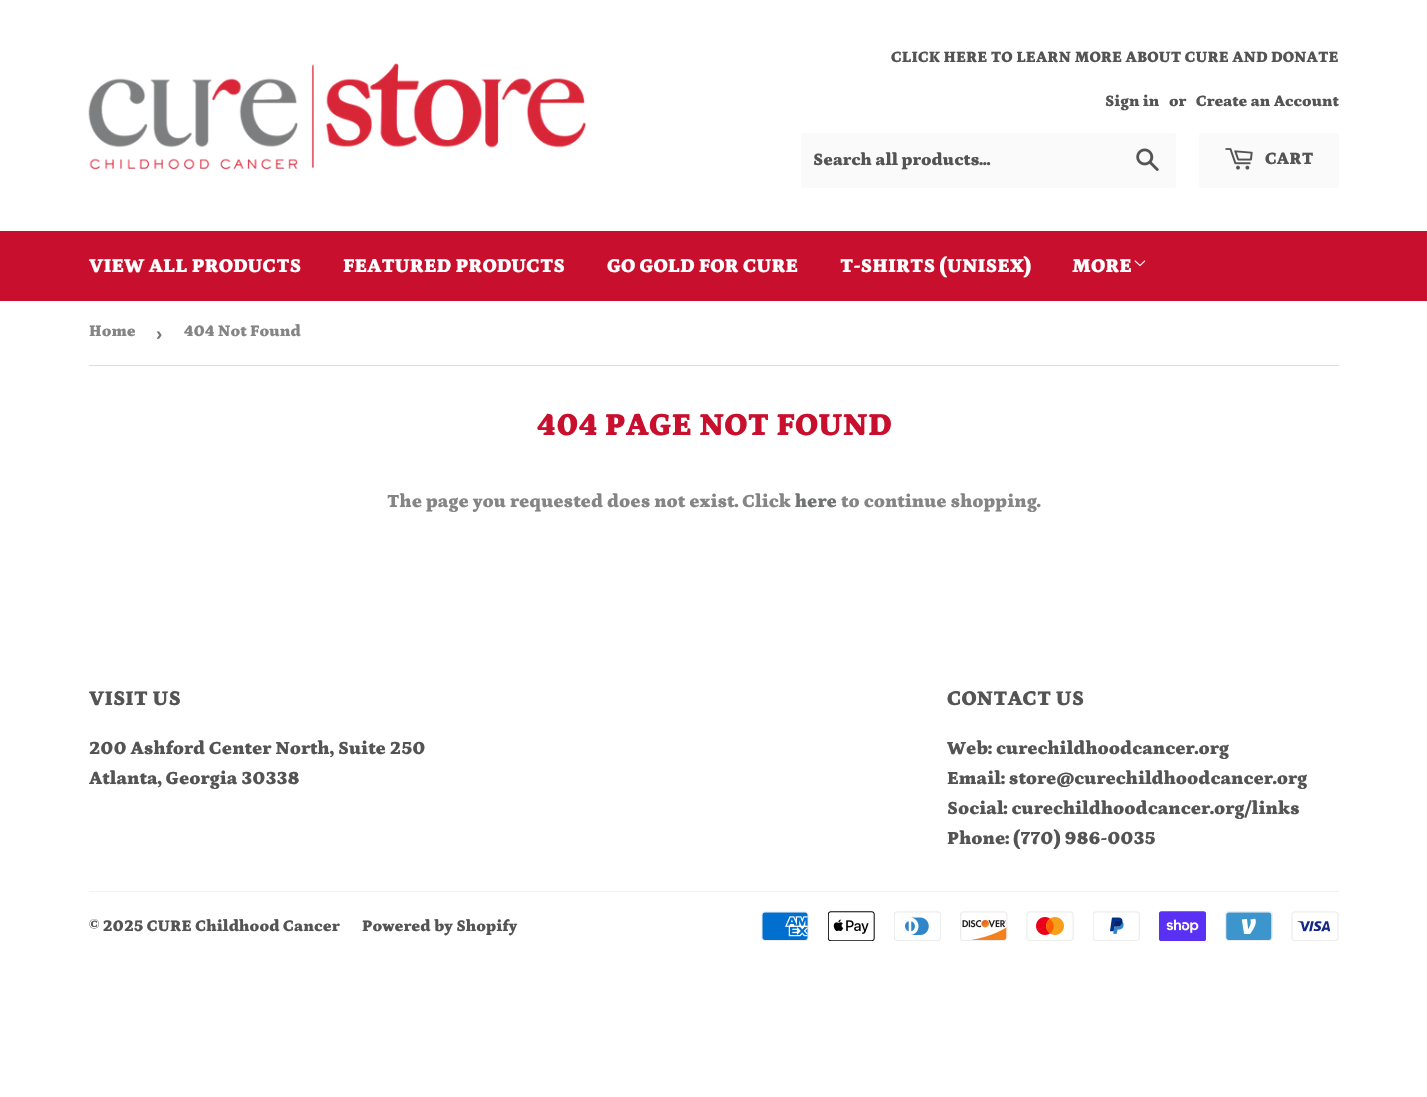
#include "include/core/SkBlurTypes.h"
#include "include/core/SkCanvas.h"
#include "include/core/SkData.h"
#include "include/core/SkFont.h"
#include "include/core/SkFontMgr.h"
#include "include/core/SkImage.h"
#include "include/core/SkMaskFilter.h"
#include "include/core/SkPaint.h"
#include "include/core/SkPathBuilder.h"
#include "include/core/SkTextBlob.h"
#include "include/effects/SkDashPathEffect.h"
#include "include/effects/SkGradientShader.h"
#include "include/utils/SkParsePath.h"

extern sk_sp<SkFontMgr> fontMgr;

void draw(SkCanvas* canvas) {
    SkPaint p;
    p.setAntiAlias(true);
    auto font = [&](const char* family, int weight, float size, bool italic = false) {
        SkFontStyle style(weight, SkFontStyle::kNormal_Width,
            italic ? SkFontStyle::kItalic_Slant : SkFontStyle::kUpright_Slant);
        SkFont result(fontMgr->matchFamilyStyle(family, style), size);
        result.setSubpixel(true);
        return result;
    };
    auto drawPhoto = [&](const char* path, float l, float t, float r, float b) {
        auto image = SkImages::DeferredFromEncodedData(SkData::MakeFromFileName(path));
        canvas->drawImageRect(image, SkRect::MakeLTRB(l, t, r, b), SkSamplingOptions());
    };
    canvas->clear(0xFFFFFFFF);
    drawPhoto("media/1.png", 88, 63, 586, 170);
    auto font1 = font("Petrona", 900, 15.95f);
    p.setColor(0xFF545454);
    {
        const struct { const char* s; float x, y; } items[] = {
            {"CLICK HERE TO LEARN MORE ABOUT CURE AND DONATE", 891, 62},
            {"Sign in", 1105, 106},
            {"or", 1169, 106},
            {"Create an Account", 1196, 106},
        };
        for (auto [s, x, y] : items) {
            canvas->drawString(s, x, y, font1, p);
        }
    }
    p.setColor(0xFFFAFAFA);
    canvas->drawRoundRect(SkRect::MakeLTRB(801, 133, 1176, 188), 2.5f, 2.5f, p);
    auto font2 = font("Petrona", 900, 17.5f);
    p.setColor(0xFF545454);
    canvas->drawString("Search all products...", 813, 165, font2, p);
    drawPhoto("media/2.png", 1136, 148, 1159, 171);
    p.setColor(0xFFFAFAFA);
    canvas->drawRoundRect(SkRect::MakeLTRB(1199, 133, 1339, 188), 2.5f, 2.5f, p);
    drawPhoto("media/3.png", 1225, 148, 1253, 170);
    p.setColor(0xFF545454);
    canvas->drawString("CART", 1265, 164, font2, p);
    p.setColor(0xFFC8102E);
    canvas->drawRect(SkRect::MakeLTRB(0, 231, 1427, 301), p);
    auto font3 = font("Petrona", 900, 20);
    p.setColor(0xFFFFFFFF);
    {
        const struct { const char* s; float x, y; } items[] = {
            {"VIEW ALL PRODUCTS", 89, 272},
            {"FEATURED PRODUCTS", 343, 272},
            {"GO GOLD FOR CURE", 607, 272},
            {"T-SHIRTS (UNISEX)", 840, 272},
            {"MORE", 1072, 272},
        };
        for (auto [s, x, y] : items) {
            canvas->drawString(s, x, y, font3, p);
        }
    }
    drawPhoto("media/4.png", 1134, 260, 1146, 267);
    p.setColor(0xFFDEDEDE);
    canvas->drawRect(SkRect::MakeLTRB(89, 365, 1339, 366), p);
    auto font4 = font("Petrona", 900, 16.25f);
    p.setColor(0xFF858585);
    canvas->drawString("Home", 89, 336, font4, p);
    auto font5 = font("Liberation Sans", 700, 18.75f);
    p.setColor(0xFF767676);
    canvas->drawString("›", 156, 340, font5, p);
    p.setColor(0xFF858585);
    canvas->drawString("404 Not Found", 184, 336, font4, p);
    auto font6 = font("Petrona", 900, 32.5f);
    p.setColor(0xFFC8102E);
    canvas->drawString("404 PAGE NOT FOUND", 537, 435, font6, p);
    auto font7 = font("Petrona", 900, 18.75f);
    p.setColor(0xFF858585);
    canvas->drawString("The page you requested does not exist. Click", 387, 507, font7, p);
    p.setColor(0xFF707372);
    canvas->drawString("here", 795, 507, font7, p);
    p.setColor(0xFF858585);
    canvas->drawString("to continue shopping.", 841, 507, font7, p);
    auto font8 = font("Petrona", 900, 21.25f);
    p.setColor(0xFF545454);
    canvas->drawString("VISIT US", 89, 705, font8, p);
    canvas->drawString("200 Ashford Center North, Suite 250", 89, 754, font7, p);
    canvas->drawString("Atlanta, Georgia 30338", 89, 784, font7, p);
    canvas->drawString("CONTACT US", 947, 705, font8, p);
    {
        const struct { const char* s; float x, y; } items[] = {
            {"Web: curechildhoodcancer.org", 947, 754},
            {"Email: store@curechildhoodcancer.org", 947, 784},
            {"Social: curechildhoodcancer.org/links", 947, 814},
            {"Phone: (770) 986-0035", 947, 844},
        };
        for (auto [s, x, y] : items) {
            canvas->drawString(s, x, y, font7, p);
        }
    }
    p.setColor(0xFFF2F2F2);
    canvas->drawRect(SkRect::MakeLTRB(89, 891, 1339, 892), p);
    p.setColor(0xFF545454);
    canvas->drawString("© 2025 CURE Childhood Cancer", 89, 931, font4, p);
    canvas->drawString("Powered by Shopify", 362, 931, font4, p);
    drawPhoto("media/5.png", 761, 911, 809, 941);
    drawPhoto("media/6.png", 828, 911, 875, 941);
    drawPhoto("media/7.png", 894, 911, 941, 941);
    drawPhoto("media/8.png", 960, 911, 1008, 941);
    drawPhoto("media/9.png", 1026, 911, 1074, 941);
    drawPhoto("media/10.png", 1093, 911, 1140, 941);
    drawPhoto("media/11.png", 1159, 911, 1206, 941);
    drawPhoto("media/12.png", 1225, 911, 1273, 941);
    drawPhoto("media/13.png", 1291, 911, 1339, 941);
}
